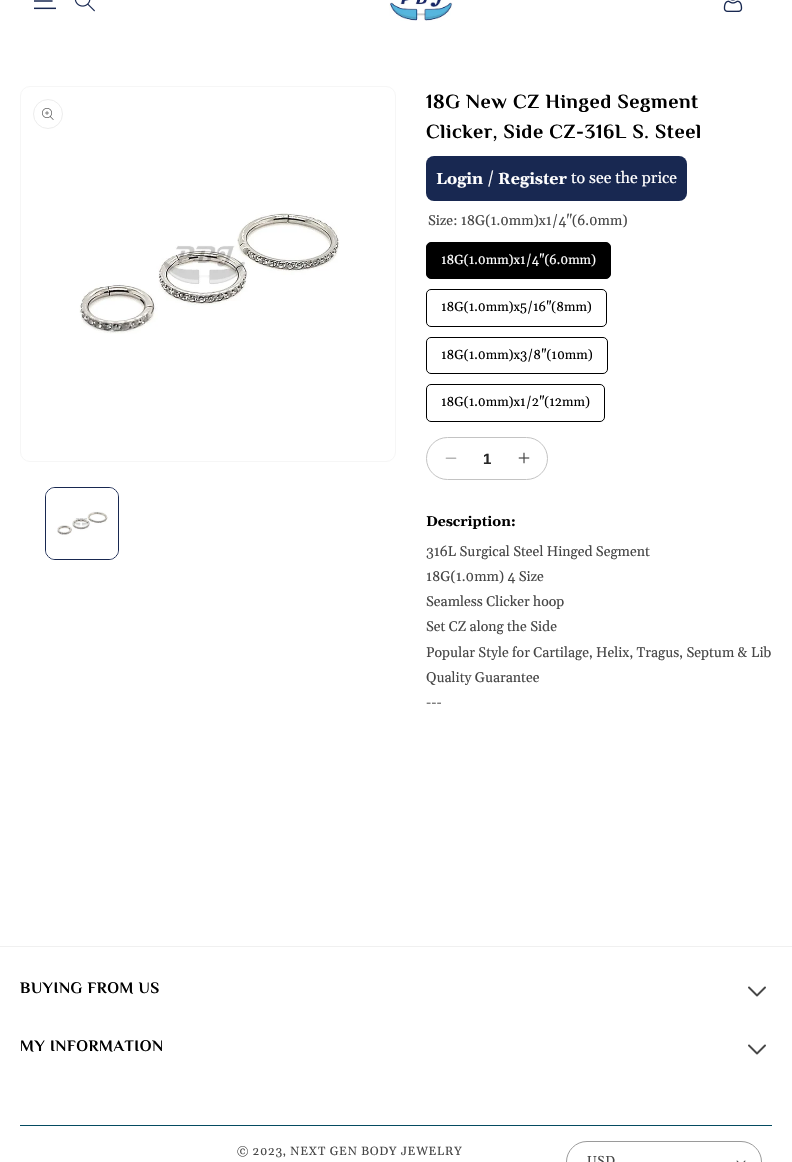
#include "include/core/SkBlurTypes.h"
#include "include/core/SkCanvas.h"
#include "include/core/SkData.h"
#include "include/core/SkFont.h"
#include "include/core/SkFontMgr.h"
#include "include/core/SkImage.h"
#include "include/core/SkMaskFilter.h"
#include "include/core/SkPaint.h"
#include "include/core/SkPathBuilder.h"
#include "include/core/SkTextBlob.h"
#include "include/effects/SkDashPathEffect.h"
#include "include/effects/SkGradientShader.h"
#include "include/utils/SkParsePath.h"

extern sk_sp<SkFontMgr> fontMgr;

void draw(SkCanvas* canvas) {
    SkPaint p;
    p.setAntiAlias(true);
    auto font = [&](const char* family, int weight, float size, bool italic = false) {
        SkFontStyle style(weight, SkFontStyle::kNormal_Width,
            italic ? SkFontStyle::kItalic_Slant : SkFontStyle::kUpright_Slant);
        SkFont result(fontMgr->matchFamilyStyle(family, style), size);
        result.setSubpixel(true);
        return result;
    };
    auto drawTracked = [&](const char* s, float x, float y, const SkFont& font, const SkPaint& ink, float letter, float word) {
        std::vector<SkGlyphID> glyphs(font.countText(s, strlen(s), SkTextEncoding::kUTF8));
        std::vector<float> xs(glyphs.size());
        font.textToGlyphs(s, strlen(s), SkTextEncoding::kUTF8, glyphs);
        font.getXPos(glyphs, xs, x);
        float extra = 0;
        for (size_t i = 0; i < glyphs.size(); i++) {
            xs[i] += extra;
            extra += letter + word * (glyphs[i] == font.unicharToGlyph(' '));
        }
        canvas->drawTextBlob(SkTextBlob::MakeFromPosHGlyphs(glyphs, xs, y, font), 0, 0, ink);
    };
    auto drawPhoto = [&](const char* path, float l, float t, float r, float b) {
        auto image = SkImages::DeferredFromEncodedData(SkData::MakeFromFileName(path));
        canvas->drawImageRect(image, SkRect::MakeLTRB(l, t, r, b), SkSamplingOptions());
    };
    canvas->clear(0xFFFFFFFF);
    drawPhoto("media/1.png", 34, 0, 56, 10);
    drawPhoto("media/2.png", 74, 0, 95, 12);
    drawPhoto("media/3.png", 389, 0, 453, 21);
    drawPhoto("media/4.png", 723, 0, 743, 12);
    p.setStyle(SkPaint::kStroke_Style);
    p.setStrokeWidth(1);
    p.setColor(0xFFF6F6F6);
    canvas->drawRoundRect(SkRect::MakeLTRB(20.5f, 86.5f, 395.5f, 461.5f), 9.5f, 9.5f, p);
    p.setColor(0xFFEDEDED);
    canvas->drawCircle(48, 114, 14.5f, p);
    drawPhoto("media/5.png", 42, 108, 54, 120);
    drawPhoto("media/6.png", 79, 213, 340, 334);
    p.setColor(0xFF182851);
    canvas->drawRoundRect(SkRect::MakeLTRB(45.5f, 487.5f, 118.5f, 559.5f), 9.5f, 9.5f, p);
    drawPhoto("media/7.png", 46, 488, 118, 559);
    auto font1 = font("Philosopher", 700, 20);
    p.setStyle(SkPaint::kFill_Style);
    p.setColor(0xFF000000);
    drawTracked("18G New CZ Hinged Segment", 426, 108, font1, p, 0.6f, 0);
    drawTracked("Clicker, Side CZ-316L S. Steel", 426, 138, font1, p, 0.6f, 0);
    p.setColor(0xFF182851);
    canvas->drawRoundRect(SkRect::MakeLTRB(426, 156, 687, 201), 8, 8, p);
    auto font2 = font("Gelasio", 700, 16);
    p.setColor(0xFFFFFFFF);
    canvas->drawString("Login", 436, 184, font2, p);
    auto font3 = font("Gelasio", 400, 16);
    canvas->drawString("/", 487, 183, font3, p);
    canvas->drawString("Register", 498, 184, font2, p);
    canvas->drawString("to see the price", 571, 183, font3, p);
    auto font4 = font("Gelasio", 400, 14);
    p.setColor(0xFF474747);
    canvas->drawString("Size: 18G(1.0mm)x1/4\"(6.0mm)", 428, 225, font4, p);
    p.setColor(0xFF000000);
    canvas->drawRoundRect(SkRect::MakeLTRB(426.5f, 242.5f, 610.5f, 278.5f), 4.5f, 4.5f, p);
    p.setStyle(SkPaint::kStroke_Style);
    canvas->drawRoundRect(SkRect::MakeLTRB(426.5f, 242.5f, 610.5f, 278.5f), 4.5f, 4.5f, p);
    auto font5 = font("Gelasio", 400, 13);
    p.setStyle(SkPaint::kFill_Style);
    p.setColor(0xFFFFFFFF);
    canvas->drawString("18G(1.0mm)x1/4\"(6.0mm)", 441, 264, font5, p);
    p.setStyle(SkPaint::kStroke_Style);
    p.setColor(0xFF000000);
    canvas->drawRoundRect(SkRect::MakeLTRB(426.5f, 289.5f, 606.5f, 326.5f), 4.5f, 4.5f, p);
    p.setStyle(SkPaint::kFill_Style);
    canvas->drawString("18G(1.0mm)x5/16\"(8mm)", 441, 311, font5, p);
    p.setStyle(SkPaint::kStroke_Style);
    canvas->drawRoundRect(SkRect::MakeLTRB(426.5f, 337.5f, 607.5f, 373.5f), 4.5f, 4.5f, p);
    p.setStyle(SkPaint::kFill_Style);
    canvas->drawString("18G(1.0mm)x3/8\"(10mm)", 441, 359, font5, p);
    p.setStyle(SkPaint::kStroke_Style);
    canvas->drawRoundRect(SkRect::MakeLTRB(426.5f, 384.5f, 604.5f, 421.5f), 4.5f, 4.5f, p);
    p.setStyle(SkPaint::kFill_Style);
    canvas->drawString("18G(1.0mm)x1/2\"(12mm)", 441, 406, font5, p);
    p.setStyle(SkPaint::kStroke_Style);
    p.setColor(0xFFC3C3C3);
    canvas->drawRoundRect(SkRect::MakeLTRB(426.5f, 437.5f, 547.5f, 479.5f), 21, 21, p);
    drawPhoto("media/8.png", 445, 457, 457, 459);
    auto font6 = font("Liberation Sans", 700, 15);
    p.setStyle(SkPaint::kFill_Style);
    p.setColor(0xFF262626);
    canvas->drawString("1", 483, 464, font6, p);
    drawPhoto("media/9.png", 518, 452, 530, 464);
    auto font7 = font("Gelasio", 700, 14);
    p.setColor(0xFF000000);
    canvas->drawString("Description:", 426, 526, font7, p);
    p.setColor(0xFF474747);
    {
        const struct { const char* s; float x, y; } items[] = {
            {"316L Surgical Steel Hinged Segment", 426, 556},
            {"18G(1.0mm) 4 Size", 426, 581},
            {"Seamless Clicker hoop", 426, 606},
            {"Set CZ along the Side", 426, 631},
            {"Popular Style for Cartilage, Helix, Tragus, Septum & Lib", 426, 657},
            {"Quality Guarantee", 426, 682},
            {"---", 426, 707},
        };
        for (auto [s, x, y] : items) {
            canvas->drawString(s, x, y, font4, p);
        }
    }
    p.setColor(0xFFF0F0F0);
    canvas->drawRect(SkRect::MakeLTRB(0, 946, 792, 947), p);
    auto font8 = font("Philosopher", 700, 16);
    p.setColor(0xFF000000);
    drawTracked("BUYING FROM US", 20, 993, font8, p, 0.6f, 0);
    drawPhoto("media/10.png", 748, 986, 766, 997);
    drawTracked("MY INFORMATION", 20, 1051, font8, p, 0.6f, 0);
    drawPhoto("media/10.png", 748, 1044, 766, 1055);
    p.setColor(0xFF044B61);
    canvas->drawRect(SkRect::MakeLTRB(20, 1125, 772, 1126), p);
    auto font9 = font("Gelasio", 400, 12);
    p.setColor(0xFF474747);
    drawTracked("© 2023, NEXT GEN BODY JEWELRY", 237, 1155, font9, p, 0.7f, 0);
    drawPhoto("media/11.png", 736, 1160, 746, 1162);
    p.setStyle(SkPaint::kStroke_Style);
    p.setColor(0xFF9A9A9A);
    canvas->drawRoundRect(SkRect::MakeLTRB(566.5f, 1141.5f, 761.5f, 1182.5f), 20.5f, 20.5f, p);
    p.setStyle(SkPaint::kFill_Style);
    p.setColor(0xFF474747);
    drawTracked("USD", 587, 1165, font5, p, 0.5f, 0);
}
